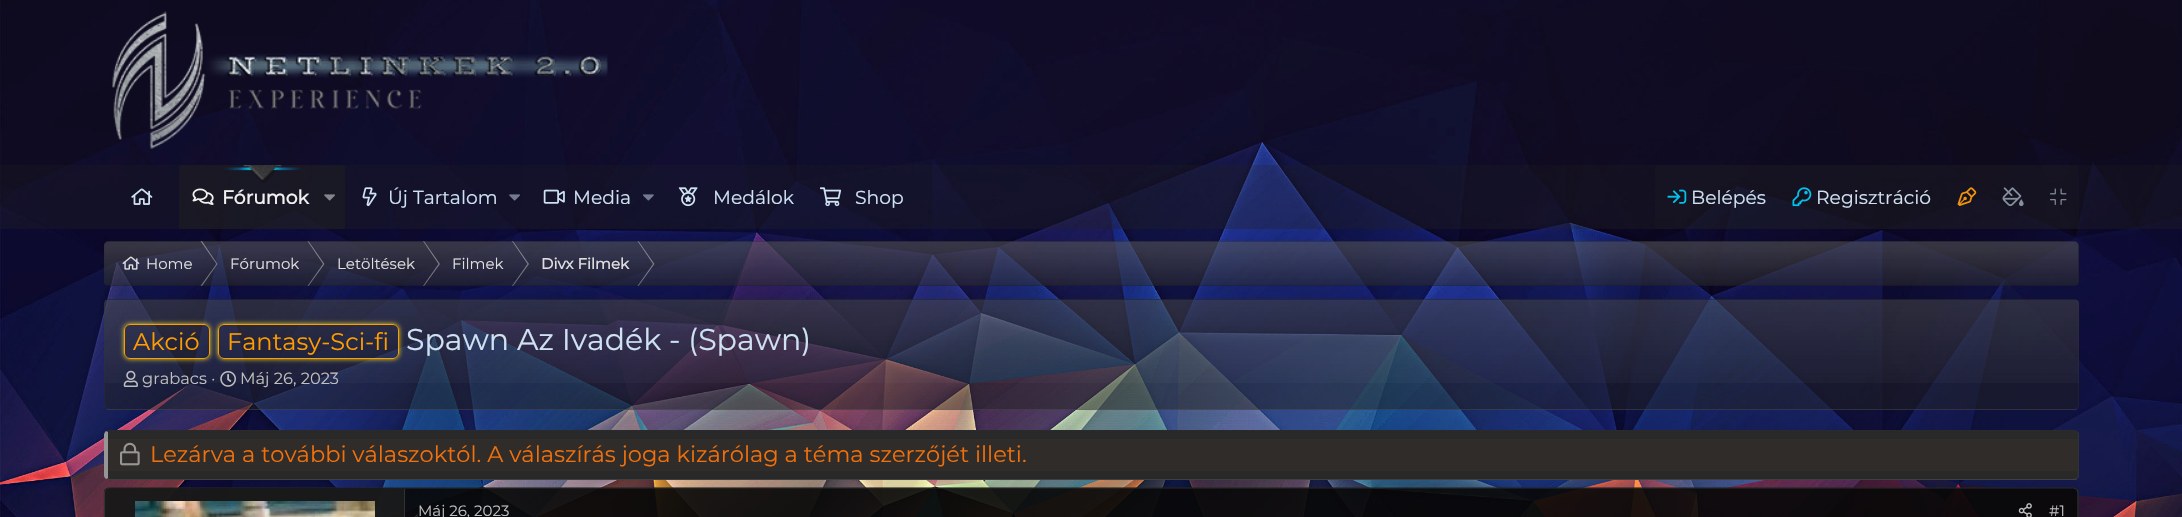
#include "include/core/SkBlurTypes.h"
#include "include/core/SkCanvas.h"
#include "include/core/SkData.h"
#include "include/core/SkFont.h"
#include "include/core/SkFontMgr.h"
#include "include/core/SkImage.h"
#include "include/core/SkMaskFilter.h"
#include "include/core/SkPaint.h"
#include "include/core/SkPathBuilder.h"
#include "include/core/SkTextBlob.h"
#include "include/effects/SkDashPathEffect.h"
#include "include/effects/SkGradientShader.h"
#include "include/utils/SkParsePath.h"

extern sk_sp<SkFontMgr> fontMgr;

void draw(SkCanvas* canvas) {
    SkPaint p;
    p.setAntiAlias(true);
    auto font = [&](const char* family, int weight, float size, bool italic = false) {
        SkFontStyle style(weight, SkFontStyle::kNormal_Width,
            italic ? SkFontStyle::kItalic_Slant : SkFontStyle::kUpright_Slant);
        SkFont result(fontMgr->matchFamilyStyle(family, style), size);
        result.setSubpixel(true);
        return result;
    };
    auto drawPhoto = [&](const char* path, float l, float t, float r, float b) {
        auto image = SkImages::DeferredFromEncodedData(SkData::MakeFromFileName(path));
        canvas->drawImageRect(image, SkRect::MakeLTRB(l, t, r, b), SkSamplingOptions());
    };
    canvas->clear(0xFFFFFFFF);
    drawPhoto("media/1.png", 0, 0, 2182, 517);
    p.setColor(0x26202020);
    canvas->drawRect(SkRect::MakeLTRB(0, 0, 2182, 165), p);
    drawPhoto("media/2.png", 112, 11, 608, 149);
    p.setColor(0x59202020);
    canvas->drawRect(SkRect::MakeLTRB(0, 165, 2182, 229), p);
    drawPhoto("media/3.png", 131, 188, 153, 205);
    p.setColor(0x73202020);
    canvas->drawPath(SkPathBuilder().moveTo(181.5f, 165).lineTo(342.5f, 165).cubicTo(344, 165, 345, 166, 345, 167.5f).lineTo(345, 229).lineTo(179, 229).lineTo(179, 167.5f).cubicTo(179, 166, 180, 165, 181.5f, 165).close().detach(), p);
    drawPhoto("media/4.png", 224, 165, 302, 183);
    drawPhoto("media/5.png", 192, 188, 214, 205);
    auto font1 = font("Montserrat", 700, 18.75f);
    p.setColor(0xFFF1F1F1);
    canvas->drawString("Fórumok", 222, 204, font1, p);
    drawPhoto("media/6.png", 324, 194, 335, 201);
    drawPhoto("media/7.png", 362, 187, 377, 207);
    auto font2 = font("Montserrat", 100, 18.75f);
    p.setColor(0xFFCFE2F2);
    canvas->drawString("Új Tartalom", 388, 204, font2, p);
    drawPhoto("media/8.png", 509, 194, 520, 201);
    drawPhoto("media/9.png", 543, 189, 565, 204);
    canvas->drawString("Media", 573, 204, font2, p);
    drawPhoto("media/10.png", 643, 194, 654, 201);
    drawPhoto("media/11.png", 678, 187, 698, 207);
    canvas->drawString("Medálok", 713, 204, font2, p);
    drawPhoto("media/12.png", 820, 187, 842, 207);
    canvas->drawString("Shop", 855, 204, font2, p);
    p.setColor(0x26202020);
    canvas->drawPath(SkPathBuilder().moveTo(1660, 165).lineTo(2074, 165).cubicTo(2077, 165, 2079, 167, 2079, 170).lineTo(2079, 229).lineTo(1655, 229).lineTo(1655, 170).cubicTo(1655, 167, 1657, 165, 1660, 165).close().detach(), p);
    drawPhoto("media/13.png", 1667, 189, 1687, 204);
    p.setColor(0xFFCFE2F2);
    canvas->drawString("Belépés", 1691, 204, font2, p);
    drawPhoto("media/14.png", 1792, 187, 1812, 207);
    canvas->drawString("Regisztráció", 1816, 204, font2, p);
    drawPhoto("media/15.png", 1957, 187, 1977, 206);
    drawPhoto("media/16.png", 2002, 187, 2024, 207);
    drawPhoto("media/17.png", 2050, 188, 2067, 205);
    p.setColor(0x80202020);
    canvas->drawRoundRect(SkRect::MakeLTRB(104, 241, 2079, 286), 5, 5, p);
    drawPhoto("media/18.png", 104, 241, 2079, 285);
    drawPhoto("media/19.png", 122, 256, 140, 270);
    p.setColor(0x61FFFFFF);
    canvas->drawPath(SkPathBuilder().moveTo(200.5f, 241).lineTo(202, 241).lineTo(217.5f, 264).lineTo(216.5f, 264).close().detach(), p);
    p.setColor(0x26202020);
    canvas->drawPath(SkPathBuilder().moveTo(202, 241).lineTo(203, 241).lineTo(219, 264).lineTo(217.5f, 264).close().detach(), p);
    p.setColor(0x61FFFFFF);
    canvas->drawPath(SkPathBuilder().moveTo(216.5f, 264).lineTo(217.5f, 264).lineTo(202, 286).lineTo(200.5f, 286).close().detach(), p);
    p.setColor(0x26202020);
    canvas->drawPath(SkPathBuilder().moveTo(217.5f, 264).lineTo(219, 264).lineTo(203, 286).lineTo(202, 286).close().detach(), p);
    p.setColor(0x61FFFFFF);
    canvas->drawPath(SkPathBuilder().moveTo(307.5f, 241).lineTo(308.5f, 241).lineTo(324.5f, 264).lineTo(323, 264).close().detach(), p);
    p.setColor(0x26202020);
    canvas->drawPath(SkPathBuilder().moveTo(308.5f, 241).lineTo(310, 241).lineTo(325.5f, 264).lineTo(324.5f, 264).close().detach(), p);
    p.setColor(0x61FFFFFF);
    canvas->drawPath(SkPathBuilder().moveTo(323, 264).lineTo(324.5f, 264).lineTo(308.5f, 286).lineTo(307.5f, 286).close().detach(), p);
    p.setColor(0x26202020);
    canvas->drawPath(SkPathBuilder().moveTo(324.5f, 264).lineTo(325.5f, 264).lineTo(310, 286).lineTo(308.5f, 286).close().detach(), p);
    p.setColor(0x61FFFFFF);
    canvas->drawPath(SkPathBuilder().moveTo(423, 241).lineTo(424, 241).lineTo(440, 264).lineTo(438.5f, 264).close().detach(), p);
    p.setColor(0x26202020);
    canvas->drawPath(SkPathBuilder().moveTo(424, 241).lineTo(425.5f, 241).lineTo(441, 264).lineTo(440, 264).close().detach(), p);
    p.setColor(0x61FFFFFF);
    canvas->drawPath(SkPathBuilder().moveTo(438.5f, 264).lineTo(440, 264).lineTo(424, 286).lineTo(423, 286).close().detach(), p);
    p.setColor(0x26202020);
    canvas->drawPath(SkPathBuilder().moveTo(440, 264).lineTo(441, 264).lineTo(425.5f, 286).lineTo(424, 286).close().detach(), p);
    p.setColor(0x61FFFFFF);
    canvas->drawPath(SkPathBuilder().moveTo(512, 241).lineTo(513, 241).lineTo(529, 264).lineTo(527.5f, 264).close().detach(), p);
    p.setColor(0x26202020);
    canvas->drawPath(SkPathBuilder().moveTo(513, 241).lineTo(514.5f, 241).lineTo(530, 264).lineTo(529, 264).close().detach(), p);
    p.setColor(0x61FFFFFF);
    canvas->drawPath(SkPathBuilder().moveTo(527.5f, 264).lineTo(529, 264).lineTo(513, 286).lineTo(512, 286).close().detach(), p);
    p.setColor(0x26202020);
    canvas->drawPath(SkPathBuilder().moveTo(529, 264).lineTo(530, 264).lineTo(514.5f, 286).lineTo(513, 286).close().detach(), p);
    p.setColor(0x61FFFFFF);
    canvas->drawPath(SkPathBuilder().moveTo(637.5f, 241).lineTo(638.5f, 241).lineTo(654.5f, 264).lineTo(653, 264).close().detach(), p);
    p.setColor(0x26202020);
    canvas->drawPath(SkPathBuilder().moveTo(638.5f, 241).lineTo(640, 241).lineTo(655.5f, 264).lineTo(654.5f, 264).close().detach(), p);
    p.setColor(0x61FFFFFF);
    canvas->drawPath(SkPathBuilder().moveTo(653, 264).lineTo(654.5f, 264).lineTo(638.5f, 286).lineTo(637.5f, 286).close().detach(), p);
    p.setColor(0x26202020);
    canvas->drawPath(SkPathBuilder().moveTo(654.5f, 264).lineTo(655.5f, 264).lineTo(640, 286).lineTo(638.5f, 286).close().detach(), p);
    p.setStyle(SkPaint::kStroke_Style);
    p.setStrokeWidth(1);
    canvas->drawRoundRect(SkRect::MakeLTRB(104.5f, 241.5f, 2078.5f, 285.5f), 4.5f, 4.5f, p);
    auto font3 = font("Montserrat", 100, 15);
    p.setStyle(SkPaint::kFill_Style);
    p.setColor(0xFFDEDEDE);
    {
        const struct { const char* s; float x, y; } items[] = {
            {"Home", 146, 269},
            {"Fórumok", 230, 269},
            {"Letöltések", 337, 269},
            {"Filmek", 452, 269},
        };
        for (auto [s, x, y] : items) {
            canvas->drawString(s, x, y, font3, p);
        }
    }
    auto font4 = font("Montserrat", 700, 15);
    canvas->drawString("Divx Filmek", 541, 269, font4, p);
    p.setColor(0x80202020);
    canvas->drawRoundRect(SkRect::MakeLTRB(104, 299, 2079, 410), 5, 5, p);
    canvas->save();
    canvas->clipPath(SkPathBuilder().moveTo(109, 299).lineTo(2074, 299).cubicTo(2077, 299, 2079, 301, 2079, 304).lineTo(2079, 405).cubicTo(2079, 408, 2077, 410, 2074, 410).lineTo(109, 410).cubicTo(106, 410, 104, 408, 104, 405).lineTo(104, 304).cubicTo(104, 301, 106, 299, 109, 299).close().detach(), true);
    {
        const SkColor colors[] = {0x17FFFFFF, 0x00FFFFFF};
        const float stops[] = {0, 1};
        const SkPoint ends[] = {{105, 300}, {105, 409}};
        p.setShader(SkGradientShader::MakeLinear(ends, colors, stops, 2, SkTileMode::kClamp));
        p.setAlpha(255);
    }
    canvas->drawRect(SkRect::MakeLTRB(104, 300, 2079, 383), p);
    {
        const SkColor colors[] = {0x17FFFFFF, 0x00FFFFFF};
        const float stops[] = {0, 1};
        const SkPoint ends[] = {{105, 409}, {105, 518}};
        p.setShader(SkGradientShader::MakeLinear(ends, colors, stops, 2, SkTileMode::kClamp));
        p.setAlpha(255);
    }
    canvas->drawRect(SkRect::MakeLTRB(104, 409, 2079, 410), p);
    canvas->restore();
    p.setStyle(SkPaint::kStroke_Style);
    p.setShader(nullptr);
    p.setColor(0x40323232);
    canvas->drawRoundRect(SkRect::MakeLTRB(104.5f, 299.5f, 2078.5f, 409.5f), 4.5f, 4.5f, p);
    canvas->save();
    canvas->clipPath(SkPathBuilder(SkPathFillType::kEvenOdd).moveTo(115, 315).lineTo(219, 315).lineTo(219, 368).lineTo(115, 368).close().moveTo(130, 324).lineTo(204, 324).cubicTo(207.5f, 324, 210, 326.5f, 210, 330).lineTo(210, 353).cubicTo(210, 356.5f, 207.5f, 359, 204, 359).lineTo(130, 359).cubicTo(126.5f, 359, 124, 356.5f, 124, 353).lineTo(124, 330).cubicTo(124, 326.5f, 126.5f, 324, 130, 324).close().detach(), true);
    p.setStyle(SkPaint::kFill_Style);
    p.setColor(0xFFEDD721);
    p.setMaskFilter(SkMaskFilter::MakeBlur(kNormal_SkBlurStyle, 2.5f));
    canvas->drawRoundRect(SkRect::MakeLTRB(124, 324, 210, 359), 6, 6, p);
    p.setMaskFilter(nullptr);
    canvas->restore();
    p.setStyle(SkPaint::kStroke_Style);
    p.setColor(0xFFFF9D00);
    canvas->drawRoundRect(SkRect::MakeLTRB(124.5f, 324.5f, 209.5f, 358.5f), 5.5f, 5.5f, p);
    auto font5 = font("Montserrat", 100, 24);
    p.setStyle(SkPaint::kFill_Style);
    canvas->drawString("Akció", 133, 350, font5, p);
    canvas->save();
    canvas->clipPath(SkPathBuilder(SkPathFillType::kEvenOdd).moveTo(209, 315).lineTo(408, 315).lineTo(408, 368).lineTo(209, 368).close().moveTo(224, 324).lineTo(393, 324).cubicTo(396.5f, 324, 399, 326.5f, 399, 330).lineTo(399, 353).cubicTo(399, 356.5f, 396.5f, 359, 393, 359).lineTo(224, 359).cubicTo(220.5f, 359, 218, 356.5f, 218, 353).lineTo(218, 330).cubicTo(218, 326.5f, 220.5f, 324, 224, 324).close().detach(), true);
    p.setColor(0xFFEDD721);
    p.setMaskFilter(SkMaskFilter::MakeBlur(kNormal_SkBlurStyle, 2.5f));
    canvas->drawRoundRect(SkRect::MakeLTRB(218, 324, 399, 359), 6, 6, p);
    p.setMaskFilter(nullptr);
    canvas->restore();
    p.setStyle(SkPaint::kStroke_Style);
    p.setColor(0xFFFF9D00);
    canvas->drawRoundRect(SkRect::MakeLTRB(218.5f, 324.5f, 398.5f, 358.5f), 5.5f, 5.5f, p);
    p.setStyle(SkPaint::kFill_Style);
    canvas->drawString("Fantasy-Sci-fi", 227, 350, font5, p);
    auto font6 = font("Montserrat", 100, 30);
    p.setColor(0xFFCFE2F2);
    canvas->drawString("Spawn Az Ivadék - (Spawn)", 406, 350, font6, p);
    drawPhoto("media/20.png", 123, 370, 138, 387);
    auto font7 = font("Montserrat", 100, 16.25f);
    p.setColor(0xFFBFBFBF);
    canvas->drawString("grabacs ·", 142, 384, font7, p);
    drawPhoto("media/21.png", 220, 371, 236, 387);
    canvas->drawString("Máj 26, 2023", 240, 384, font7, p);
    p.setColor(0xFF292929);
    canvas->drawPath(SkPathBuilder().moveTo(109, 431).lineTo(2074, 431).cubicTo(2076, 431, 2078, 433, 2078, 435).lineTo(2078, 475).cubicTo(2078, 477, 2076, 479, 2074, 479).lineTo(109, 479).cubicTo(108, 479, 108, 477, 108, 475).lineTo(108, 435).cubicTo(108, 433, 108, 431, 109, 431).close().detach(), p);
    p.setColor(0xFF2A2A2A);
    canvas->drawPath(SkPathBuilder().moveTo(109, 430).lineTo(106, 431).lineTo(108, 432).lineTo(109, 431).lineTo(2074, 431).lineTo(2077, 432).lineTo(2077, 431).cubicTo(2077, 430, 2075, 430, 2074, 430).close().detach(), p);
    p.setColor(0xFF323232);
    canvas->drawPath(SkPathBuilder().moveTo(2079, 477).lineTo(2077, 479).lineTo(2077, 478).cubicTo(2077, 477, 2078, 476, 2078, 475).lineTo(2078, 435).cubicTo(2078, 434, 2077, 433, 2077, 432).lineTo(2077, 431).lineTo(2079, 433).close().detach(), p);
    p.setColor(0xFF3F3F3F);
    canvas->drawPath(SkPathBuilder().moveTo(109, 480).lineTo(2074, 480).cubicTo(2075, 480, 2077, 480, 2077, 479).lineTo(2077, 478).lineTo(2074, 479).lineTo(109, 479).lineTo(108, 478).lineTo(106, 479).close().detach(), p);
    p.setColor(0xFF969696);
    canvas->drawPath(SkPathBuilder().moveTo(106, 431).cubicTo(105, 432, 104, 433, 104, 435).lineTo(104, 475).cubicTo(104, 477, 105, 478, 106, 479).lineTo(108, 478).lineTo(108, 432).close().detach(), p);
    p.setColor(0xFF2F2C2A);
    canvas->drawRect(SkRect::MakeLTRB(108, 439, 2078, 471), p);
    drawPhoto("media/22.png", 120, 442, 140, 466);
    auto font8 = font("Montserrat", 100, 22.5f);
    p.setColor(0xFFF1700B);
    canvas->drawString("Lezárva a további válaszoktól. A válaszírás joga kizárólag a téma szerzőjét illeti.", 150, 462, font8, p);
    p.setColor(0xB3202020);
    canvas->drawRoundRect(SkRect::MakeLTRB(104, 488, 2079, 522), 5, 5, p);
    drawPhoto("media/23.png", 103, 487, 2079, 517);
    p.setStyle(SkPaint::kStroke_Style);
    p.setStrokeWidth(1.2f);
    p.setColor(0xFF2A2A2A);
    canvas->drawPath(SkPathBuilder().moveTo(105.5f, 489.5f).lineTo(109, 488).lineTo(2074, 488).lineTo(2077, 489.5f).detach(), p);
    p.setColor(0xFF323232);
    canvas->drawPath(SkPathBuilder().moveTo(2077, 489.5f).lineTo(2078, 492.5f).lineTo(2078, 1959).lineTo(2077, 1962).detach(), p);
    canvas->drawPath(SkPathBuilder().moveTo(105.5f, 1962).lineTo(104.5f, 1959).lineTo(104.5f, 492.5f).lineTo(105.5f, 489.5f).detach(), p);
    p.setStyle(SkPaint::kFill_Style);
    p.setColor(0xA6202020);
    canvas->drawPath(SkPathBuilder().moveTo(109, 489).lineTo(405, 489).lineTo(405, 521).lineTo(109, 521).cubicTo(107, 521, 105, 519, 105, 517).lineTo(105, 493).cubicTo(105, 491, 107, 489, 109, 489).close().detach(), p);
    p.setColor(0xFF323232);
    canvas->drawRect(SkRect::MakeLTRB(404, 489, 405, 517), p);
    drawPhoto("media/24.png", 135, 501, 375, 517);
    canvas->drawPath(SkPathBuilder().moveTo(417.5f, 514).lineTo(417.5f, 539).lineTo(405, 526).close().detach(), p);
    p.setColor(0xFF202020);
    canvas->drawPath(SkPathBuilder().moveTo(417.5f, 515).lineTo(417.5f, 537.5f).lineTo(406, 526).close().detach(), p);
    p.setColor(0xFFBFBFBF);
    canvas->drawString("Máj 26, 2023", 418, 516, font3, p);
    drawPhoto("media/25.png", 2018, 503, 2032, 517);
    canvas->drawString("#1", 2049, 516, font3, p);
}
